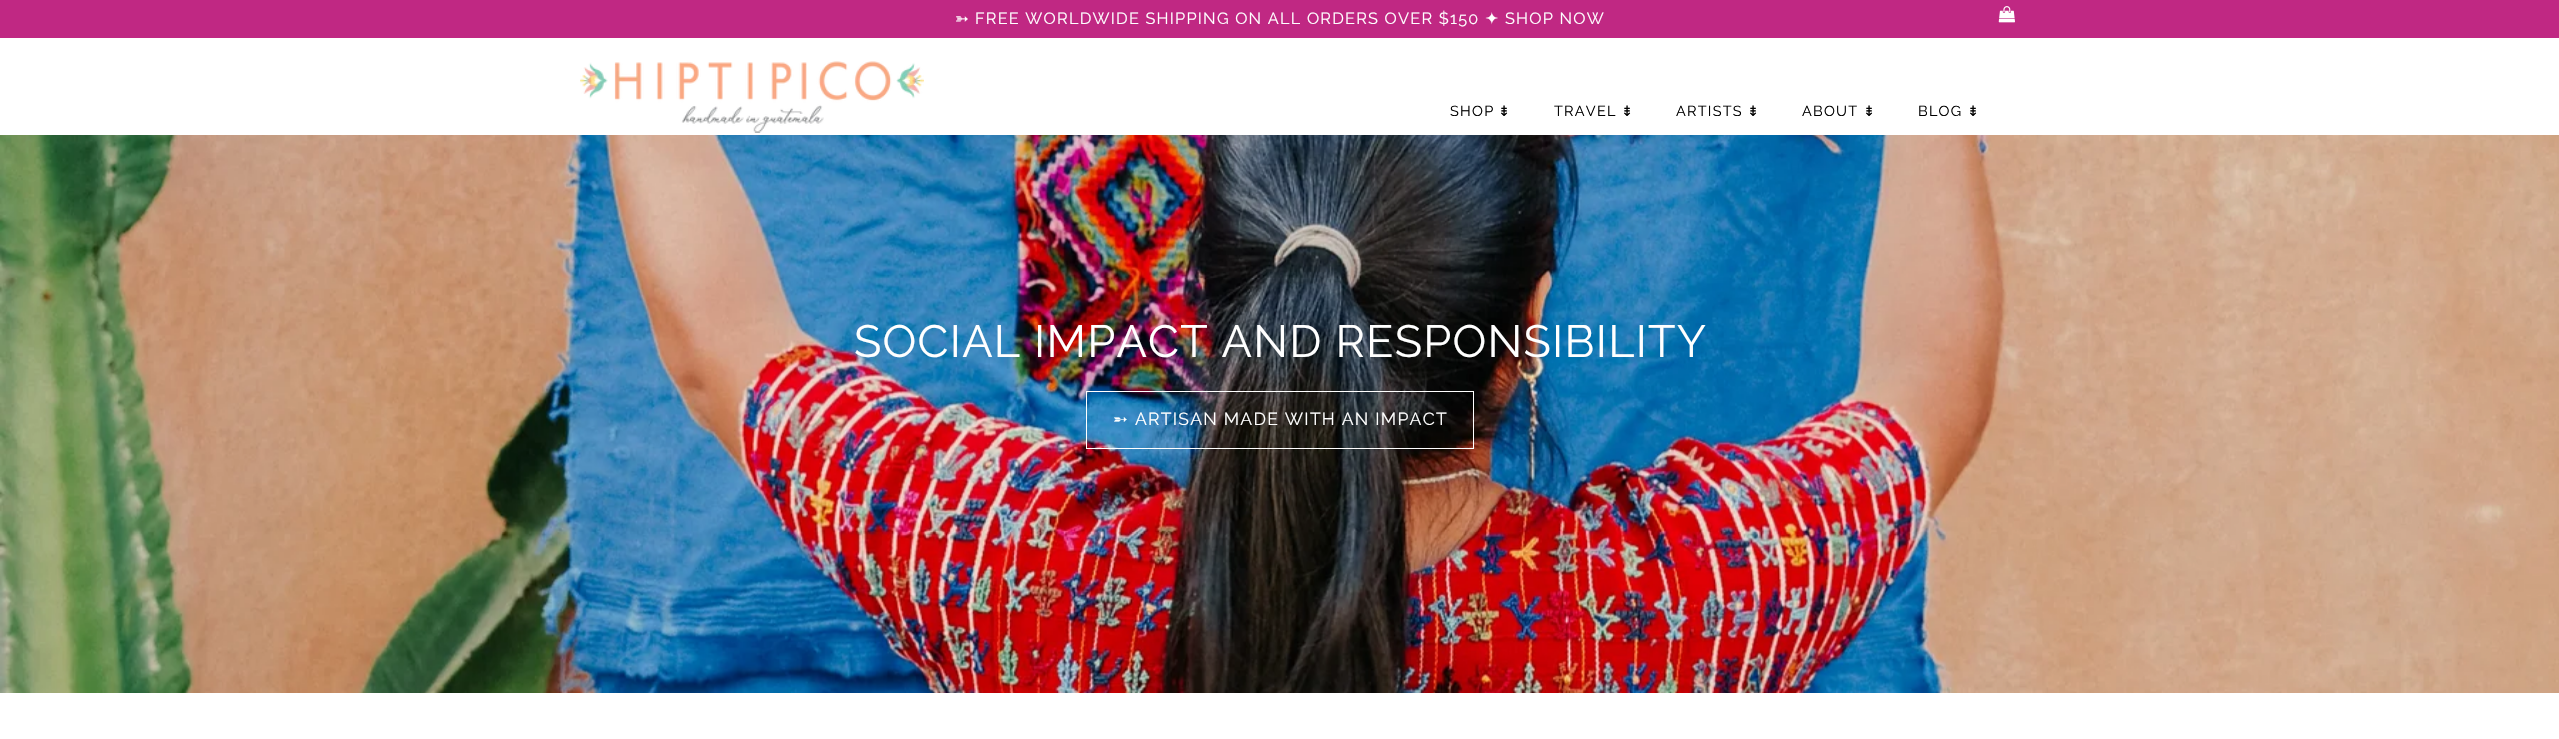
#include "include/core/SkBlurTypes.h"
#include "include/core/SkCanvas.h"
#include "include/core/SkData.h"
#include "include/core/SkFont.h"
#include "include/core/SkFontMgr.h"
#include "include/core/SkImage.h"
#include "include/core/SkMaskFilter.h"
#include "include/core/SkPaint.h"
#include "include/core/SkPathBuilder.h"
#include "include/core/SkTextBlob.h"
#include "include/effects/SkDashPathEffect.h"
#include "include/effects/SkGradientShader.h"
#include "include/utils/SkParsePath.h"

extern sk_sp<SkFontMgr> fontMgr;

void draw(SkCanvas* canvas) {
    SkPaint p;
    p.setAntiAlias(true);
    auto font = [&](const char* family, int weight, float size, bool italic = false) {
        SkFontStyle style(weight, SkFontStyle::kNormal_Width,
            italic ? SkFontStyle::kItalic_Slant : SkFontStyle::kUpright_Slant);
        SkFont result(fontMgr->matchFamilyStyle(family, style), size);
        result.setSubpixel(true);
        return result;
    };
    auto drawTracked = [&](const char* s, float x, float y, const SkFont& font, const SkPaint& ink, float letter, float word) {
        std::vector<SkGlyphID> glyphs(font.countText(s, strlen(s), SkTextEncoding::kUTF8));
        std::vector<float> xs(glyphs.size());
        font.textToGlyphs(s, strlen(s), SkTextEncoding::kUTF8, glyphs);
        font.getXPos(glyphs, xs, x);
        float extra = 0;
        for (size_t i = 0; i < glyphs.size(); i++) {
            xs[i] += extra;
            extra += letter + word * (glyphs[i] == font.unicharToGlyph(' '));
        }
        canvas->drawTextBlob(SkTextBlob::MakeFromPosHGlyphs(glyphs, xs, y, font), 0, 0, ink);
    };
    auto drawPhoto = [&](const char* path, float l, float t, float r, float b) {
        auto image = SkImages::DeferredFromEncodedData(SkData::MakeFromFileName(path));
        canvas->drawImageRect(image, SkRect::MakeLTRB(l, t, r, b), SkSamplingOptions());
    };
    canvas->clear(0xFFFFFFFF);
    p.setColor(0xFFC02883);
    canvas->drawRect(SkRect::MakeLTRB(0, 0, 2559, 38), p);
    auto font1 = font("DejaVu Sans", 400, 16.25f);
    p.setColor(0xFFFFFFFF);
    drawTracked("➳", 955, 24, font1, p, 1.25f, 0);
    auto font2 = font("Raleway", 400, 16.25f);
    drawTracked("FREE WORLDWIDE SHIPPING ON ALL ORDERS OVER $150", 975, 24, font2, p, 1.25f, 0);
    drawTracked("✦", 1485, 24, font1, p, 1.25f, 0);
    drawTracked("SHOP NOW", 1505, 24, font2, p, 1.25f, 0);
    drawPhoto("media/1.png", 1998, 6, 2015, 23);
    drawPhoto("media/2.png", 580, 61, 924, 133);
    auto font3 = font("Raleway", 400, 14.5f);
    p.setColor(0xFF000000);
    drawTracked("SHOP", 1450, 116, font3, p, 1.25f, 0);
    auto font4 = font("DejaVu Sans", 400, 14.5f);
    drawTracked("⇟", 1498, 116, font4, p, 1.25f, 0);
    drawTracked("TRAVEL", 1554, 116, font3, p, 1.25f, 0);
    drawTracked("⇟", 1621, 116, font4, p, 1.25f, 0);
    drawTracked("ARTISTS", 1676, 116, font3, p, 1.25f, 0);
    drawTracked("⇟", 1747, 116, font4, p, 1.25f, 0);
    drawTracked("ABOUT", 1802, 116, font3, p, 1.25f, 0);
    drawTracked("⇟", 1863, 116, font4, p, 1.25f, 0);
    drawTracked("BLOG", 1918, 116, font3, p, 1.25f, 0);
    drawTracked("⇟", 1967, 116, font4, p, 1.25f, 0);
    drawPhoto("media/3.png", 0, 135, 2559, 693);
    auto font5 = font("Raleway", 400, 45);
    p.setColor(0xFFFFFFFF);
    drawTracked("SOCIAL IMPACT AND RESPONSIBILITY", 854, 357, font5, p, 1.25f, 0);
    p.setStyle(SkPaint::kStroke_Style);
    p.setStrokeWidth(1);
    canvas->drawRect(SkRect::MakeLTRB(1086.5f, 391.5f, 1473.5f, 448.5f), p);
    auto font6 = font("DejaVu Sans", 400, 17.5f);
    p.setStyle(SkPaint::kFill_Style);
    drawTracked("➵", 1113, 425, font6, p, 1.25f, 0);
    auto font7 = font("Raleway", 400, 17.5f);
    drawTracked("ARTISAN MADE WITH AN IMPACT", 1135, 425, font7, p, 1.25f, 0);
}
